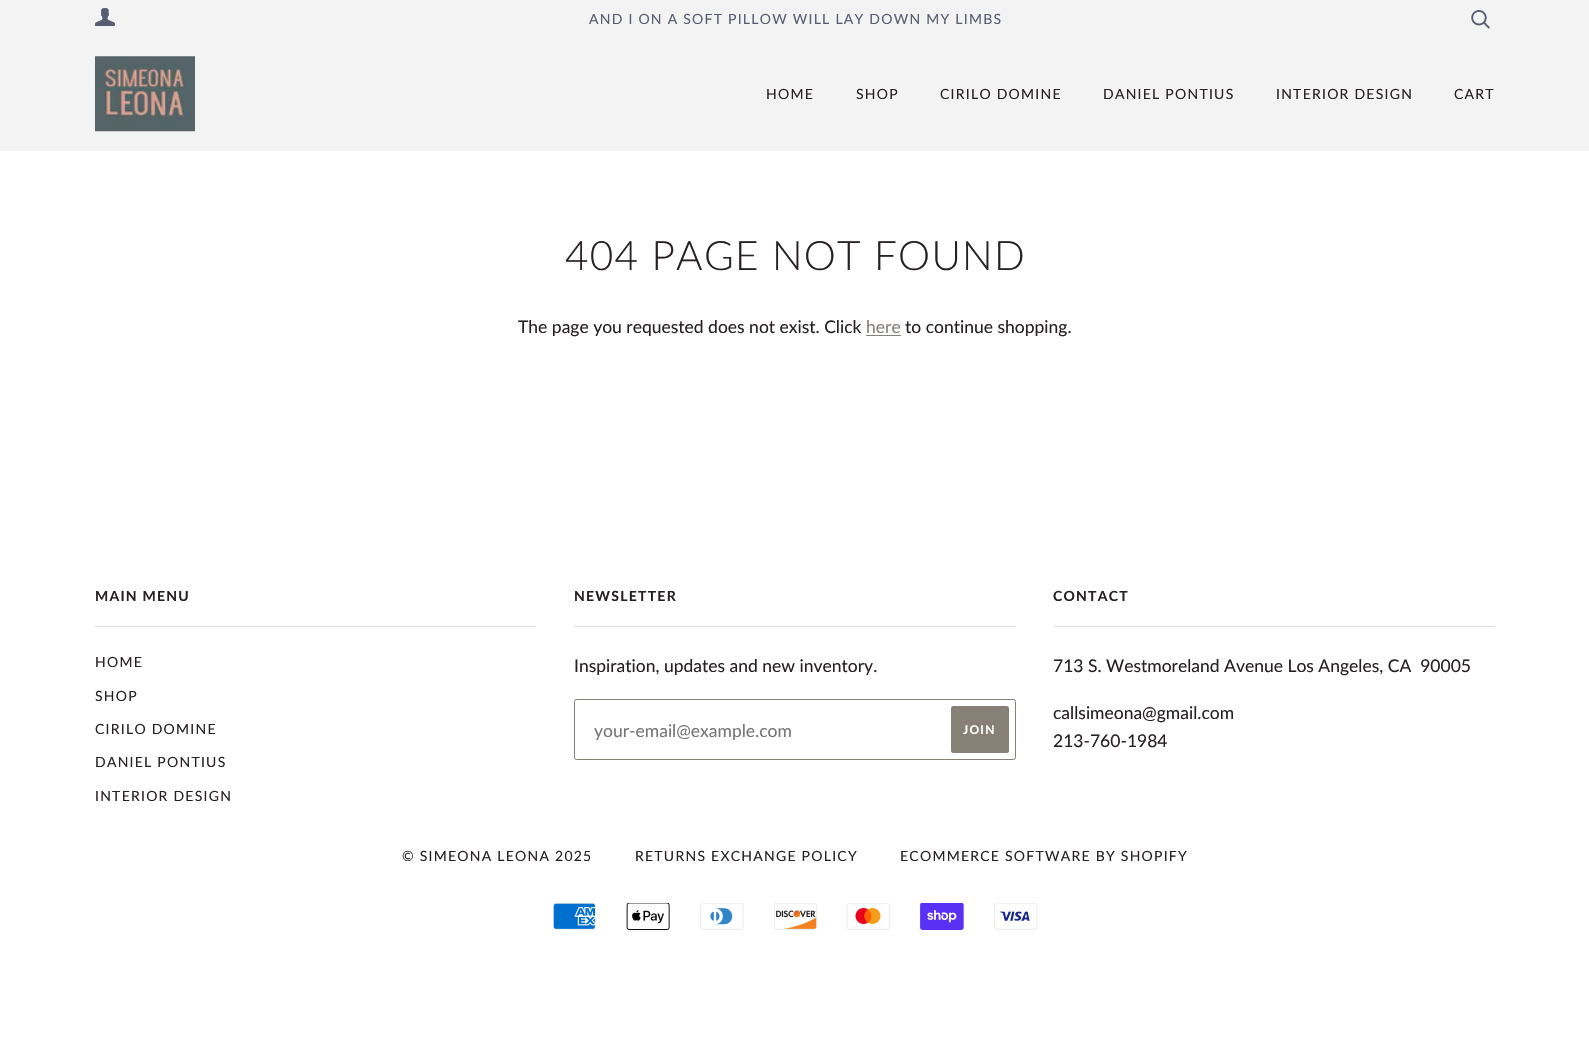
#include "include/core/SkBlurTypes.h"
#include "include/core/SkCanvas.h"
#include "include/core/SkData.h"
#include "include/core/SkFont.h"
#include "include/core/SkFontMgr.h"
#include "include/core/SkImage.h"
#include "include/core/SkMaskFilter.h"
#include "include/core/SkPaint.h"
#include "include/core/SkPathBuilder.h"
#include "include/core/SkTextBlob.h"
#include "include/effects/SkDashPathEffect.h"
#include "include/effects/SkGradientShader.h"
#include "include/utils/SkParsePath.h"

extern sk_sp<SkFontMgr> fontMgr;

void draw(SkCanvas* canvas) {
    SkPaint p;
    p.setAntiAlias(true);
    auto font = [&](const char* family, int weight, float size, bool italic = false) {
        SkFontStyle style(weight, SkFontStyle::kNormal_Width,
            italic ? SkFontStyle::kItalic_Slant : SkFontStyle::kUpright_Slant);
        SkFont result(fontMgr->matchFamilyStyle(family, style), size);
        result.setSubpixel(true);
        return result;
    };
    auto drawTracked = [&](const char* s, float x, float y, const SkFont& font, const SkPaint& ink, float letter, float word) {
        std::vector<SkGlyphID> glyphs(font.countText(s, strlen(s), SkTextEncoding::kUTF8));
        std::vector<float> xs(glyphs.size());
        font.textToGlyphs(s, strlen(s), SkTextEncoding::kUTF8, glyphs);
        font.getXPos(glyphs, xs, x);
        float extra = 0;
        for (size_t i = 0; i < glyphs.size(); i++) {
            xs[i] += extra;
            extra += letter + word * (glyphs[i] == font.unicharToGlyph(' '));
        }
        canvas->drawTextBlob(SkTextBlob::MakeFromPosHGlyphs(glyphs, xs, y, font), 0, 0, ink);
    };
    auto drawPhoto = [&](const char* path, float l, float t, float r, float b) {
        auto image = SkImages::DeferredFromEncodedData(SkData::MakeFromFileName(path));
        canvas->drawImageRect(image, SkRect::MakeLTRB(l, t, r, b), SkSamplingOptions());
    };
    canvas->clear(0xFFFFFFFF);
    p.setColor(0xFFF3F3F3);
    canvas->drawRect(SkRect::MakeLTRB(0, 0, 1589, 151), p);
    drawPhoto("media/1.png", 95, 8, 115, 26);
    auto font1 = font("Lato", 400, 14);
    p.setColor(0xFF585E71);
    drawTracked("AND I ON A SOFT PILLOW WILL LAY DOWN MY LIMBS", 589, 24, font1, p, 1.25f, 0);
    drawPhoto("media/2.png", 1471, 10, 1490, 29);
    drawPhoto("media/3.png", 95, 56, 195, 132);
    p.setColor(0xFF272022);
    {
        const struct { const char* s; float x, y; } items[] = {
            {"HOME", 766, 99},
            {"SHOP", 856, 99},
            {"CIRILO DOMINE", 940, 99},
            {"DANIEL PONTIUS", 1103, 99},
            {"INTERIOR DESIGN", 1276, 99},
            {"CART", 1454, 99},
        };
        for (auto [s, x, y] : items) {
            drawTracked(s, x, y, font1, p, 1.25f, 0);
        }
    }
    auto font2 = font("Lato", 300, 40.5f);
    drawTracked("404 PAGE NOT FOUND", 565, 270, font2, p, 1.25f, 0);
    auto font3 = font("Lato", 400, 17.5f);
    canvas->drawString("The page you requested does not exist. Click", 518, 333, font3, p);
    p.setColor(0xFF868077);
    canvas->drawString("here", 866, 333, font3, p);
    canvas->drawRect(SkRect::MakeLTRB(866, 335, 901, 336), p);
    p.setColor(0xFF272022);
    canvas->drawString("to continue shopping.", 905, 333, font3, p);
    auto font4 = font("Lato", 700, 14);
    drawTracked("MAIN MENU", 95, 601, font4, p, 1.25f, 0);
    p.setColor(0xFFDFDEDE);
    canvas->drawRect(SkRect::MakeLTRB(95, 626, 536, 627), p);
    p.setColor(0xFF272022);
    {
        const struct { const char* s; float x, y; } items[] = {
            {"HOME", 95, 667},
            {"SHOP", 95, 701},
            {"CIRILO DOMINE", 95, 734},
            {"DANIEL PONTIUS", 95, 767},
            {"INTERIOR DESIGN", 95, 801},
        };
        for (auto [s, x, y] : items) {
            drawTracked(s, x, y, font1, p, 1.25f, 0);
        }
    }
    drawTracked("NEWSLETTER", 574, 601, font4, p, 1.25f, 0);
    p.setColor(0xFFDFDEDE);
    canvas->drawRect(SkRect::MakeLTRB(574, 626, 1016, 627), p);
    p.setColor(0xFF272022);
    canvas->drawString("Inspiration, updates and new inventory.", 574, 672, font3, p);
    p.setStyle(SkPaint::kStroke_Style);
    p.setStrokeWidth(1);
    p.setColor(0xFF868077);
    canvas->drawRoundRect(SkRect::MakeLTRB(574.5f, 699.5f, 1015.5f, 759.5f), 2, 2, p);
    p.setStyle(SkPaint::kFill_Style);
    p.setColor(0xFF757575);
    canvas->drawString("your-email@example.com", 594, 737, font3, p);
    p.setColor(0xFF868077);
    canvas->drawRoundRect(SkRect::MakeLTRB(951, 706, 1009, 753), 2.5f, 2.5f, p);
    auto font5 = font("Lato", 700, 12);
    p.setColor(0xFFFFFFFF);
    drawTracked("JOIN", 963, 734, font5, p, 1.25f, 0);
    p.setColor(0xFF272022);
    drawTracked("CONTACT", 1053, 601, font4, p, 1.25f, 0);
    p.setColor(0xFFDFDEDE);
    canvas->drawRect(SkRect::MakeLTRB(1054, 626, 1495, 627), p);
    p.setColor(0xFF272022);
    {
        const struct { const char* s; float x, y; } items[] = {
            {"713 S. Westmoreland Avenue Los Angeles, CA  90005", 1053, 672},
            {"callsimeona@gmail.com", 1053, 719},
            {"213-760-1984", 1053, 747},
        };
        for (auto [s, x, y] : items) {
            canvas->drawString(s, x, y, font3, p);
        }
    }
    {
        const struct { const char* s; float x, y; } items[] = {
            {"© SIMEONA LEONA 2025", 402, 861},
            {"RETURNS EXCHANGE POLICY", 635, 861},
            {"ECOMMERCE SOFTWARE BY SHOPIFY", 900, 861},
        };
        for (auto [s, x, y] : items) {
            drawTracked(s, x, y, font1, p, 1.25f, 0);
        }
    }
    drawPhoto("media/4.png", 553, 903, 596, 930);
    drawPhoto("media/5.png", 626, 903, 670, 930);
    drawPhoto("media/6.png", 700, 903, 744, 930);
    drawPhoto("media/7.png", 774, 903, 818, 930);
    drawPhoto("media/8.png", 846, 903, 890, 930);
    drawPhoto("media/9.png", 920, 903, 964, 930);
    drawPhoto("media/10.png", 994, 903, 1038, 930);
}
